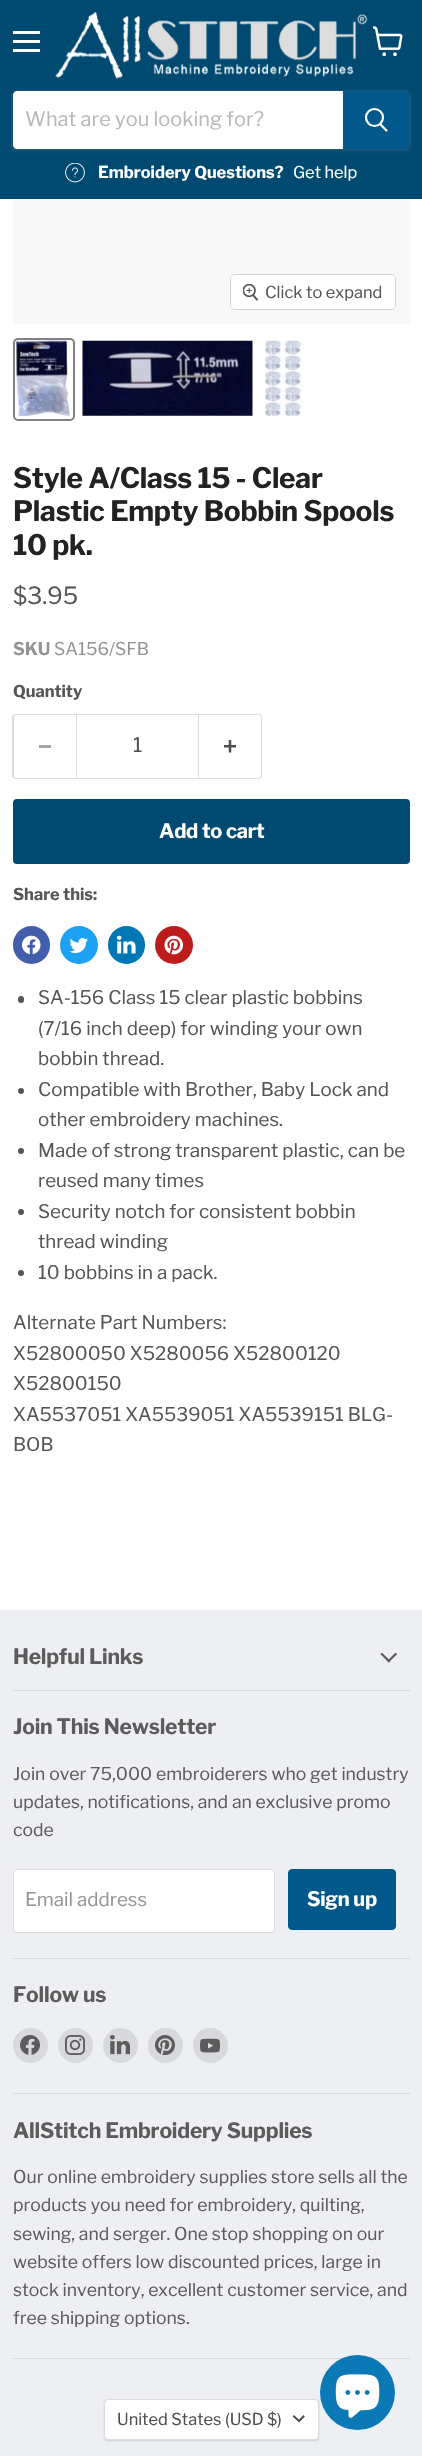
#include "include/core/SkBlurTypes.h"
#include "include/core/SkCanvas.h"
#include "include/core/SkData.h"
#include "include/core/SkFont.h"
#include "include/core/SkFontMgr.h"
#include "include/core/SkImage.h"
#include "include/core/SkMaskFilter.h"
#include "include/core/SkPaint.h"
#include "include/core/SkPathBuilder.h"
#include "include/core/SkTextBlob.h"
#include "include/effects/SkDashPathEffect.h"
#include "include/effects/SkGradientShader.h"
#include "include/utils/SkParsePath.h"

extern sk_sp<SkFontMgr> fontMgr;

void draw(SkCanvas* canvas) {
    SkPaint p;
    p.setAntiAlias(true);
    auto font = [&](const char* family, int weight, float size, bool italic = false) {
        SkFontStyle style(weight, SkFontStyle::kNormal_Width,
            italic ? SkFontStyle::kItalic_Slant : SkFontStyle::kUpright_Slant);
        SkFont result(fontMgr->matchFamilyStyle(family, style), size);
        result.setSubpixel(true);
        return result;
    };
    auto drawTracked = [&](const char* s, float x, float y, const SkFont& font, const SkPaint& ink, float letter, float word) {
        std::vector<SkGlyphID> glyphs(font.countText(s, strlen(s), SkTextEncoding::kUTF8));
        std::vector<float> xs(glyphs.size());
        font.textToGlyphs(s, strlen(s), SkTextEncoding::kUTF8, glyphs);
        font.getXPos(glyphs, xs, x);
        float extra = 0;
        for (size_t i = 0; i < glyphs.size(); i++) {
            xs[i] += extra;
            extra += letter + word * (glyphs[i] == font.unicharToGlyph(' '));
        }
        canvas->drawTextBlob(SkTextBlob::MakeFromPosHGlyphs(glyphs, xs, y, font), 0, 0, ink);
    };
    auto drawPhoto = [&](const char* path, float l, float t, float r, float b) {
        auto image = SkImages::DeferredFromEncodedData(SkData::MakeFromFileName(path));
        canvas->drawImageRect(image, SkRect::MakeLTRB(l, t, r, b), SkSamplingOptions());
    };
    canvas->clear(0xFFFFFFFF);
    {
        const struct { float l, t, r, b; SkColor color; } items[] = {
            {0, 0, 422, 199, 0xFF004970},
            {13, 31, 40, 34, 0xFFFFFFFF},
            {13, 40, 40, 43, 0xFFFFFFFF},
            {13, 49, 40, 52, 0xFFFFFFFF},
        };
        for (auto [l, t, r, b, color] : items) {
            p.setColor(color);
            canvas->drawRect(SkRect::MakeLTRB(l, t, r, b), p);
        }
    }
    drawPhoto("media/1.png", 373, 26, 403, 56);
    drawPhoto("media/2.png", 55, 12, 368, 79);
    p.setColor(0x1C808080);
    p.setMaskFilter(SkMaskFilter::MakeBlur(kNormal_SkBlurStyle, 2));
    canvas->drawRoundRect(SkRect::MakeLTRB(11, 93, 411, 153), 5, 5, p);
    p.setMaskFilter(nullptr);
    p.setStyle(SkPaint::kStroke_Style);
    p.setStrokeWidth(1);
    p.setColor(0x33808080);
    canvas->drawRoundRect(SkRect::MakeLTRB(11.5f, 90.5f, 410.5f, 149.5f), 4.5f, 4.5f, p);
    p.setStyle(SkPaint::kFill_Style);
    p.setColor(0xFFFFFFFF);
    canvas->drawPath(SkPathBuilder().moveTo(17, 91).lineTo(343, 91).lineTo(343, 149).lineTo(17, 149).cubicTo(15, 149, 13, 147, 13, 145).lineTo(13, 95).cubicTo(13, 93, 15, 91, 17, 91).close().detach(), p);
    auto font1 = font("Libre Franklin", 400, 20);
    p.setColor(0xFFB8B8B8);
    canvas->drawString("What are you looking for?", 25, 126, font1, p);
    p.setColor(0xFF00598A);
    canvas->drawPath(SkPathBuilder().moveTo(343.5f, 91.5f).lineTo(406, 91.5f).cubicTo(408, 91.5f, 409.5f, 93, 409.5f, 95).lineTo(409.5f, 145).cubicTo(409.5f, 147, 408, 148.5f, 406, 148.5f).lineTo(343.5f, 148.5f).close().detach(), p);
    p.setStyle(SkPaint::kStroke_Style);
    canvas->drawPath(SkPathBuilder().moveTo(343.5f, 91.5f).lineTo(406, 91.5f).cubicTo(408, 91.5f, 409.5f, 93, 409.5f, 95).lineTo(409.5f, 145).cubicTo(409.5f, 147, 408, 148.5f, 406, 148.5f).lineTo(343.5f, 148.5f).close().detach(), p);
    p.setStrokeWidth(2.2f);
    p.setStrokeCap(SkPaint::kRound_Cap);
    p.setColor(0xFFFFFFFF);
    canvas->drawPath(SkPathBuilder().moveTo(386.5f, 130.5f).lineTo(380.5f, 124.5f).detach(), p);
    p.setStrokeCap(SkPaint::kButt_Cap);
    canvas->drawCircle(374.5f, 117.5f, 8.5f, p);
    drawPhoto("media/3.png", 65, 163, 85, 183);
    auto font2 = font("Libre Franklin", 700, 16.4f);
    p.setStyle(SkPaint::kFill_Style);
    canvas->drawString("Embroidery Questions?", 98, 178, font2, p);
    auto font3 = font("Libre Franklin", 400, 16.4f);
    canvas->drawString("Get help", 293, 178, font3, p);
    p.setColor(0xFFF8F8F8);
    canvas->drawRect(SkRect::MakeLTRB(13, 199, 410, 324), p);
    p.setStyle(SkPaint::kStroke_Style);
    p.setStrokeWidth(1);
    p.setColor(0xFFD3D3D3);
    canvas->drawRoundRect(SkRect::MakeLTRB(230.5f, 274.5f, 395.5f, 309.5f), 4.5f, 4.5f, p);
    p.setStyle(SkPaint::kFill_Style);
    p.setColor(0xE6FFFFFF);
    canvas->drawRoundRect(SkRect::MakeLTRB(231, 275, 395, 309), 4, 4, p);
    drawPhoto("media/4.png", 243, 284, 259, 301);
    p.setColor(0xFF555555);
    canvas->drawString("Click to expand", 265, 298, font3, p);
    p.setStyle(SkPaint::kStroke_Style);
    p.setStrokeWidth(2);
    p.setColor(0xFF818181);
    canvas->drawRoundRect(SkRect::MakeLTRB(14, 339, 74, 420), 4, 4, p);
    drawPhoto("media/5.png", 16, 340, 70, 416);
    drawPhoto("media/6.png", 82, 340, 253, 416);
    drawPhoto("media/7.png", 265, 340, 302, 416);
    auto font4 = font("Libre Franklin", 700, 28.1f);
    p.setStyle(SkPaint::kFill_Style);
    p.setColor(0xFF222222);
    {
        const struct { const char* s; float x, y; } items[] = {
            {"Style A/Class 15 - Clear", 13, 488},
            {"Plastic Empty Bobbin Spools", 13, 521},
            {"10 pk.", 13, 555},
        };
        for (auto [s, x, y] : items) {
            drawTracked(s, x, y, font4, p, -0.25f, 0);
        }
    }
    auto font5 = font("Libre Franklin", 400, 23.5f);
    p.setColor(0xFF555555);
    canvas->drawString("$3.95", 13, 604, font5, p);
    auto font6 = font("Libre Franklin", 700, 17.5f);
    p.setColor(0xFF949494);
    canvas->drawString("SKU", 13, 655, font6, p);
    auto font7 = font("Libre Franklin", 400, 17.5f);
    canvas->drawString("SA156/SFB", 54, 655, font7, p);
    p.setColor(0xFF555555);
    canvas->drawString("Quantity", 13, 697, font2, p);
    p.setColor(0xFFDDDDDD);
    canvas->drawPath(SkPathBuilder(SkPathFillType::kEvenOdd).moveTo(16, 714).lineTo(76, 714).lineTo(76, 779).lineTo(16, 779).cubicTo(14, 779, 12, 777, 12, 775).lineTo(12, 718).cubicTo(12, 715, 14, 714, 16, 714).close().moveTo(16, 715).lineTo(76, 715).lineTo(76, 778).lineTo(16, 778).cubicTo(15, 778, 14, 776, 14, 775).lineTo(14, 718).cubicTo(14, 716, 15, 715, 16, 715).close().detach(), p);
    p.setColor(0xFFA6A6A6);
    canvas->drawRect(SkRect::MakeLTRB(39, 745, 51, 748), p);
    p.setStyle(SkPaint::kStroke_Style);
    p.setStrokeWidth(1);
    p.setColor(0xFFDDDDDD);
    canvas->drawRect(SkRect::MakeLTRB(76.5f, 714.5f, 198.5f, 778.5f), p);
    p.setStyle(SkPaint::kFill_Style);
    p.setColor(0xFF4D4D4D);
    canvas->drawString("1", 133, 752, font1, p);
    p.setColor(0xFFDDDDDD);
    canvas->drawPath(SkPathBuilder(SkPathFillType::kEvenOdd).moveTo(199, 714).lineTo(259, 714).cubicTo(261, 714, 262, 715, 262, 718).lineTo(262, 775).cubicTo(262, 777, 261, 779, 259, 779).lineTo(199, 779).close().moveTo(199, 715).lineTo(259, 715).cubicTo(260, 715, 261, 716, 261, 718).lineTo(261, 775).cubicTo(261, 776, 260, 778, 259, 778).lineTo(199, 778).close().detach(), p);
    drawPhoto("media/8.png", 224, 740, 236, 753);
    p.setColor(0xFF004970);
    canvas->drawRoundRect(SkRect::MakeLTRB(13, 799, 410, 864), 4, 4, p);
    auto font8 = font("Libre Franklin", 700, 20);
    p.setColor(0xFFFFFFFF);
    drawTracked("Add to cart", 159, 838, font8, p, -0.25f, 0);
    p.setColor(0xFF555555);
    canvas->drawString("Share this:", 13, 900, font2, p);
    p.setColor(0xFF425DAB);
    canvas->drawRoundRect(SkRect::MakeLTRB(13, 926, 50, 964), 18.5f, 18.5f, p);
    drawPhoto("media/9.png", 22, 935, 41, 955);
    p.setColor(0xFF1DA1F2);
    canvas->drawCircle(79, 945, 19, p);
    drawPhoto("media/10.png", 69, 938, 88, 954);
    p.setColor(0xFF0077B5);
    canvas->drawRoundRect(SkRect::MakeLTRB(108, 926, 145, 964), 18.5f, 18.5f, p);
    drawPhoto("media/11.png", 117, 935, 136, 954);
    p.setColor(0xFFBD1C1C);
    canvas->drawCircle(174, 945, 19, p);
    drawPhoto("media/12.png", 164, 935, 183, 955);
    p.setColor(0xFF555555);
    canvas->drawRoundRect(SkRect::MakeLTRB(18, 996, 24, 1003), 3, 3, p);
    auto font9 = font("Libre Franklin", 400, 18.75f);
    {
        const struct { const char* s; float x, y; } items[] = {
            {"SA-156 Class 15 clear plastic bobbins", 38, 1004},
            {"(7/16 inch deep) for winding your own", 38, 1035},
            {"bobbin thread.", 38, 1065},
        };
        for (auto [s, x, y] : items) {
            canvas->drawString(s, x, y, font9, p);
        }
    }
    canvas->drawCircle(21, 1091, 3, p);
    canvas->drawString("Compatible with Brother, Baby Lock and", 38, 1096, font9, p);
    canvas->drawString("other embroidery machines.", 38, 1126, font9, p);
    canvas->drawCircle(21, 1151, 3, p);
    canvas->drawString("Made of strong transparent plastic, can be", 38, 1157, font9, p);
    canvas->drawString("reused many times", 38, 1187, font9, p);
    canvas->drawCircle(21, 1212, 3, p);
    canvas->drawString("Security notch for consistent bobbin", 38, 1218, font9, p);
    canvas->drawString("thread winding", 38, 1248, font9, p);
    canvas->drawCircle(21, 1273, 3, p);
    {
        const struct { const char* s; float x, y; } items[] = {
            {"10 bobbins in a pack.", 38, 1279},
            {"Alternate Part Numbers:", 13, 1329},
            {"X52800050 X5280056 X52800120", 13, 1360},
            {"X52800150", 13, 1390},
            {"XA5537051 XA5539051 XA5539151 BLG-", 13, 1421},
            {"BOB", 13, 1451},
        };
        for (auto [s, x, y] : items) {
            canvas->drawString(s, x, y, font9, p);
        }
    }
    p.setColor(0xFFEDEFF3);
    canvas->drawRect(SkRect::MakeLTRB(0, 1610, 422, 2456), p);
    p.setColor(0xFFD7D9DC);
    canvas->drawRect(SkRect::MakeLTRB(13, 1690, 410, 1691), p);
    auto font10 = font("Libre Franklin", 700, 21.1f);
    p.setColor(0xFF5C5C5C);
    drawTracked("Helpful Links", 13, 1664, font10, p, -0.2f, 0);
    drawPhoto("media/13.png", 380, 1653, 397, 1663);
    p.setColor(0xFFD7D9DC);
    canvas->drawRect(SkRect::MakeLTRB(13, 1958, 410, 1959), p);
    p.setColor(0xFF5C5C5C);
    drawTracked("Join This Newsletter", 13, 1734, font10, p, -0.2f, 0);
    auto font11 = font("Libre Franklin", 400, 17.6f);
    {
        const struct { const char* s; float x, y; } items[] = {
            {"Join over 75,000 embroiderers who get industry", 13, 1780},
            {"updates, notifications, and an exclusive promo", 13, 1808},
            {"code", 13, 1836},
        };
        for (auto [s, x, y] : items) {
            canvas->drawString(s, x, y, font11, p);
        }
    }
    p.setColor(0xFFFFFFFF);
    canvas->drawRoundRect(SkRect::MakeLTRB(13.5f, 1869.5f, 274.5f, 1932.5f), 3.5f, 3.5f, p);
    p.setStyle(SkPaint::kStroke_Style);
    p.setColor(0xFFDDDDDD);
    canvas->drawRoundRect(SkRect::MakeLTRB(13.5f, 1869.5f, 274.5f, 1932.5f), 3.5f, 3.5f, p);
    p.setStyle(SkPaint::kFill_Style);
    p.setColor(0xFF949494);
    canvas->drawString("Email address", 25, 1906, font9, p);
    p.setColor(0xFF00598A);
    canvas->drawRoundRect(SkRect::MakeLTRB(288.5f, 1869.5f, 395.5f, 1929.5f), 3.5f, 3.5f, p);
    p.setStyle(SkPaint::kStroke_Style);
    canvas->drawRoundRect(SkRect::MakeLTRB(288.5f, 1869.5f, 395.5f, 1929.5f), 3.5f, 3.5f, p);
    p.setStyle(SkPaint::kFill_Style);
    p.setColor(0xFFFFFFFF);
    drawTracked("Sign up", 307, 1906, font8, p, -0.25f, 0);
    p.setColor(0xFFD7D9DC);
    canvas->drawRect(SkRect::MakeLTRB(13, 2093, 410, 2094), p);
    p.setColor(0xFF5C5C5C);
    drawTracked("Follow us", 13, 2002, font10, p, -0.2f, 0);
    p.setColor(0xFFD7D9DC);
    canvas->drawCircle(30.5f, 2045.5f, 17.5f, p);
    drawPhoto("media/14.png", 20, 2035, 40, 2055);
    canvas->drawCircle(75.5f, 2045.5f, 17.5f, p);
    drawPhoto("media/15.png", 65, 2035, 85, 2055);
    canvas->drawCircle(120.5f, 2045.5f, 17.5f, p);
    drawPhoto("media/16.png", 110, 2035, 130, 2055);
    canvas->drawCircle(165.5f, 2045.5f, 17.5f, p);
    drawPhoto("media/17.png", 155, 2035, 175, 2055);
    canvas->drawCircle(210.5f, 2045.5f, 17.5f, p);
    drawPhoto("media/18.png", 200, 2038, 220, 2053);
    canvas->drawRect(SkRect::MakeLTRB(13, 2358, 410, 2359), p);
    p.setColor(0xFF5C5C5C);
    drawTracked("AllStitch Embroidery Supplies", 13, 2138, font10, p, -0.2f, 0);
    {
        const struct { const char* s; float x, y; } items[] = {
            {"Our online embroidery supplies store sells all the", 13, 2183},
            {"products you need for embroidery, quilting,", 13, 2211},
            {"sewing, and serger. One stop shopping on our", 13, 2240},
            {"website offers low discounted prices, large in", 13, 2268},
            {"stock inventory, excellent customer service, and", 13, 2296},
            {"free shipping options.", 13, 2324},
        };
        for (auto [s, x, y] : items) {
            canvas->drawString(s, x, y, font11, p);
        }
    }
    p.setColor(0x26000000);
    p.setMaskFilter(SkMaskFilter::MakeBlur(kNormal_SkBlurStyle, 1));
    canvas->drawRoundRect(SkRect::MakeLTRB(104, 2400, 319, 2441), 4, 4, p);
    p.setMaskFilter(nullptr);
    p.setColor(0xFFFFFFFF);
    canvas->drawRoundRect(SkRect::MakeLTRB(104.5f, 2399.5f, 318.5f, 2439.5f), 3.5f, 3.5f, p);
    p.setStyle(SkPaint::kStroke_Style);
    p.setColor(0xFFDDDDDD);
    canvas->drawRoundRect(SkRect::MakeLTRB(104.5f, 2399.5f, 318.5f, 2439.5f), 3.5f, 3.5f, p);
    p.setStyle(SkPaint::kFill_Style);
    p.setColor(0xFF4D4D4D);
    canvas->drawString("United States (USD $)", 117, 2425, font3, p);
    p.setStyle(SkPaint::kStroke_Style);
    p.setStrokeWidth(2);
    p.setStrokeCap(SkPaint::kSquare_Cap);
    canvas->drawPath(SkPathBuilder().moveTo(299, 2421).lineTo(303.5f, 2416.5f).moveTo(299, 2421).lineTo(294, 2416.5f).detach(), p);
    p.setStyle(SkPaint::kFill_Style);
    p.setColor(0xFF0B79B6);
    canvas->drawCircle(357.5f, 2392.5f, 37.5f, p);
    drawPhoto("media/19.png", 335, 2374, 380, 2418);
}
